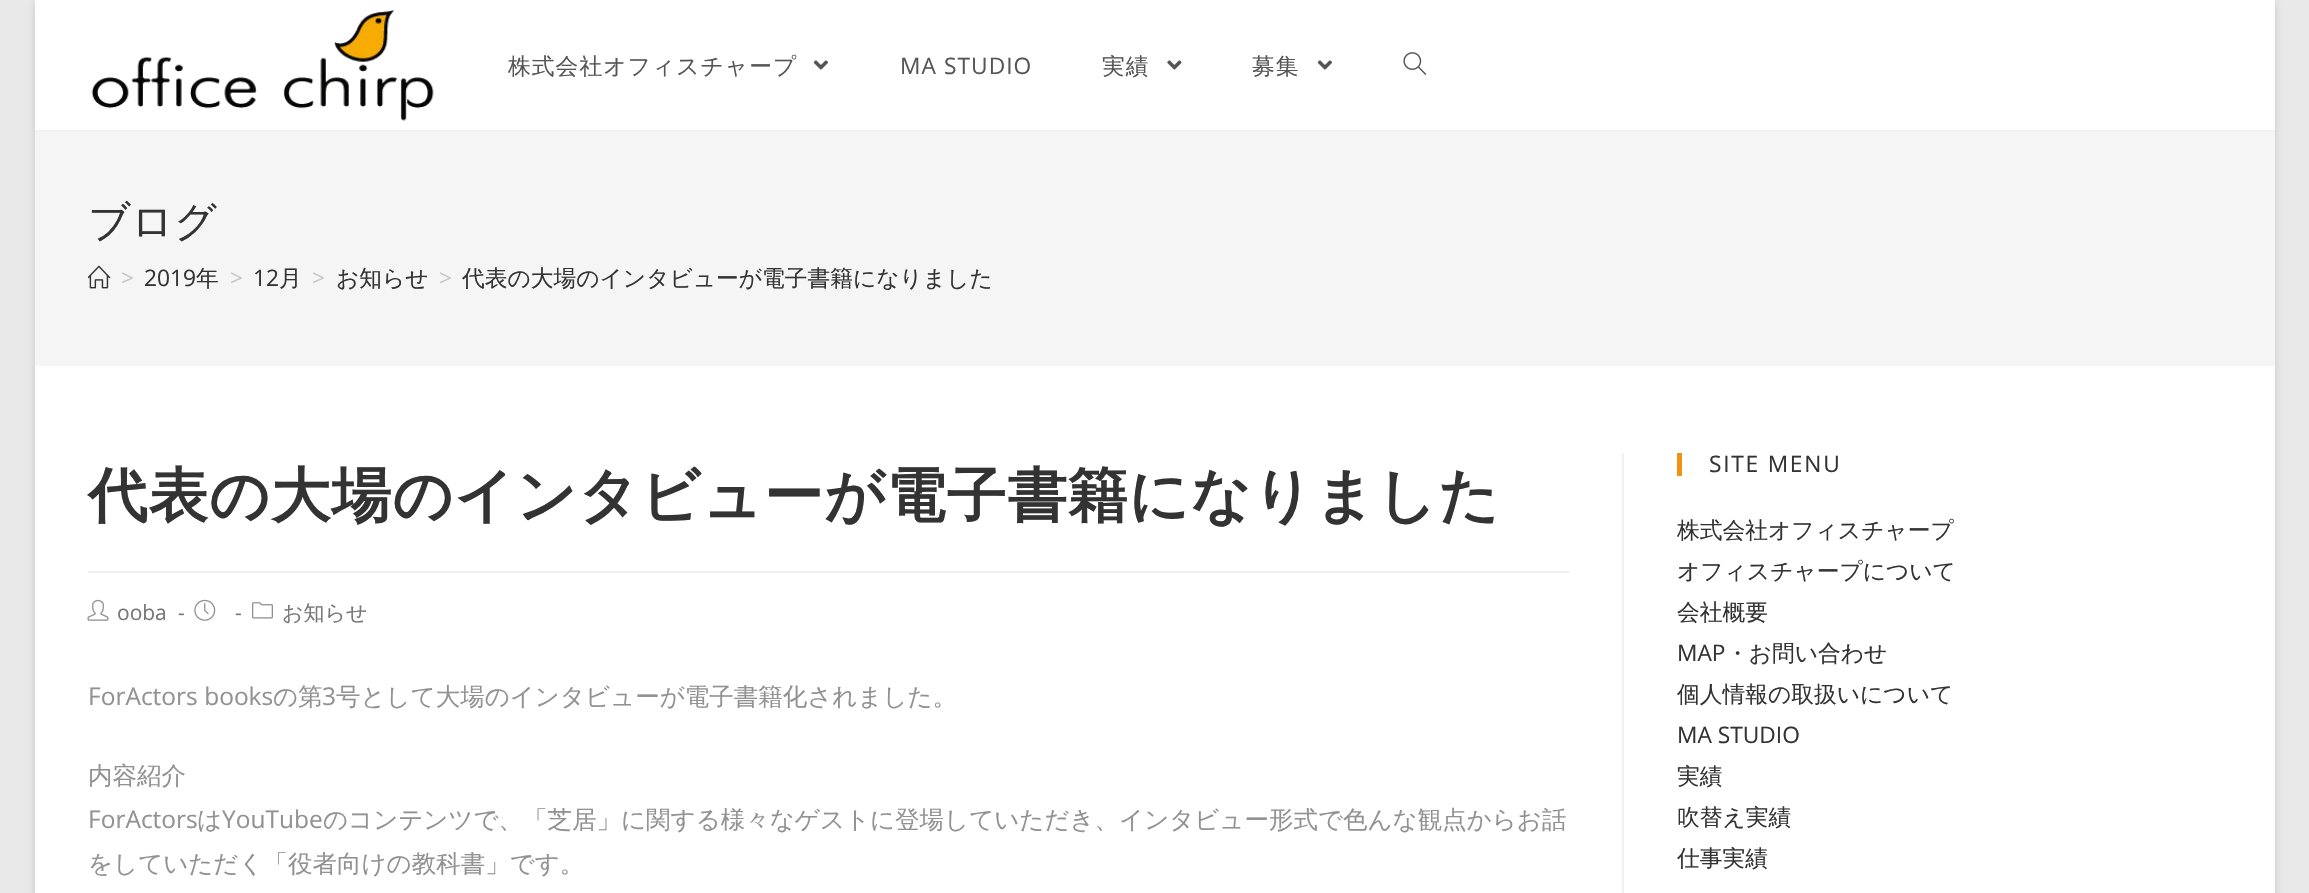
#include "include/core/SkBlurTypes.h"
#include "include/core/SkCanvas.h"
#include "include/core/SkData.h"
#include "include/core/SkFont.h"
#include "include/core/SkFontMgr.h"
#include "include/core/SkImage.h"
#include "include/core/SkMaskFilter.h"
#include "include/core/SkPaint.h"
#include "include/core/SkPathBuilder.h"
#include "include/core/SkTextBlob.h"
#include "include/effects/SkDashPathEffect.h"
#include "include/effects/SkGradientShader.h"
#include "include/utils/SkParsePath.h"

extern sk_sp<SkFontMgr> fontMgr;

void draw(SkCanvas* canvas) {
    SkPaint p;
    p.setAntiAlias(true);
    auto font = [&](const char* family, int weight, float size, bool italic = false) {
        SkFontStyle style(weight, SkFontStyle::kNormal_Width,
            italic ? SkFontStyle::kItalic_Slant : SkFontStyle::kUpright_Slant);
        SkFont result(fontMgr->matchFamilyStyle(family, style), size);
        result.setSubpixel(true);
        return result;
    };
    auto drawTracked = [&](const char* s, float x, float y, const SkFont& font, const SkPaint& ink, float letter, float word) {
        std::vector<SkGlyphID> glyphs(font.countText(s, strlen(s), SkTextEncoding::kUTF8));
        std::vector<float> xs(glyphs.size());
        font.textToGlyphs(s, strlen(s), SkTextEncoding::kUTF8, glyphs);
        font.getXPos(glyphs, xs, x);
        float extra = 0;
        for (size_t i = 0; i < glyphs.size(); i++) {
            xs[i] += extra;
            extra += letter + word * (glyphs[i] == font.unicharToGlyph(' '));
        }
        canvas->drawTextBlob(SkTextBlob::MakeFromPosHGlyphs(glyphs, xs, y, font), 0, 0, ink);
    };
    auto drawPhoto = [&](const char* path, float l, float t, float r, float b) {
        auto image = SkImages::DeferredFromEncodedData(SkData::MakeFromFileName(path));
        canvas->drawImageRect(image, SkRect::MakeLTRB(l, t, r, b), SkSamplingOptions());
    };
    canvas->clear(0xFFE9E9E9);
    p.setColor(0x26000000);
    p.setMaskFilter(SkMaskFilter::MakeBlur(kNormal_SkBlurStyle, 3.5f));
    canvas->drawRect(SkRect::MakeLTRB(35, 2, 2275, 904), p);
    p.setMaskFilter(nullptr);
    p.setColor(0xFFFFFFFF);
    canvas->drawRect(SkRect::MakeLTRB(35, 0, 2275, 893), p);
    p.setColor(0xFFF1F1F1);
    canvas->drawRect(SkRect::MakeLTRB(35, 130, 2275, 132), p);
    drawPhoto("media/1.png", 91, 10, 434, 121);
    auto font1 = font("WenQuanYi Zen Hei", 500, 22.75f);
    p.setColor(0xFF555555);
    drawTracked("株式会社オフィスチャープ", 508, 74, font1, p, 1.05f, 0);
    drawPhoto("media/2.png", 813, 60, 828, 70);
    auto font2 = font("Open Sans", 400, 22.75f);
    drawTracked("MA STUDIO", 900, 74, font2, p, 1.05f, 0);
    drawTracked("実績", 1102, 74, font1, p, 1.05f, 0);
    drawPhoto("media/3.png", 1167, 60, 1182, 70);
    drawTracked("募集", 1252, 74, font1, p, 1.05f, 0);
    drawPhoto("media/2.png", 1317, 60, 1332, 70);
    drawPhoto("media/4.png", 1403, 52, 1427, 75);
    p.setColor(0xFFF5F5F5);
    canvas->drawRect(SkRect::MakeLTRB(35, 132, 2275, 366), p);
    auto font3 = font("WenQuanYi Zen Hei", 500, 42);
    p.setColor(0xFF333333);
    canvas->drawString("ブログ", 88, 236, font3, p);
    drawPhoto("media/5.png", 88, 265, 111, 289);
    p.setColor(0xFFC6C6C6);
    canvas->drawString(">", 121, 286, font2, p);
    p.setColor(0xFF333333);
    canvas->drawString("2019", 144, 286, font2, p);
    canvas->drawString("年", 196, 286, font1, p);
    p.setColor(0xFFC6C6C6);
    canvas->drawString(">", 230, 286, font2, p);
    p.setColor(0xFF333333);
    canvas->drawString("12", 253, 286, font2, p);
    canvas->drawString("月", 279, 286, font1, p);
    p.setColor(0xFFC6C6C6);
    canvas->drawString(">", 312, 286, font2, p);
    p.setColor(0xFF333333);
    canvas->drawString("お知らせ", 336, 286, font1, p);
    p.setColor(0xFFC6C6C6);
    canvas->drawString(">", 439, 286, font2, p);
    p.setColor(0xFF333333);
    canvas->drawString("代表の大場のインタビューが電子書籍になりました", 462, 286, font1, p);
    p.setColor(0xFFF1F1F1);
    canvas->drawRect(SkRect::MakeLTRB(1622, 453, 1624, 893), p);
    canvas->drawRect(SkRect::MakeLTRB(88, 571, 1570, 573), p);
    auto font4 = font("WenQuanYi Zen Hei", 700, 59.5f);
    p.setColor(0xFF333333);
    drawTracked("代表の大場のインタビューが電子書籍になりました", 88, 516, font4, p, 1.05f, 0);
    drawPhoto("media/6.png", 87, 599, 109, 621);
    auto font5 = font("Open Sans", 400, 21);
    p.setColor(0xFF777777);
    canvas->drawString("ooba", 117, 620, font5, p);
    canvas->drawString("-", 178, 620, font5, p);
    drawPhoto("media/7.png", 194, 599, 216, 621);
    canvas->drawString("-", 235, 620, font5, p);
    drawPhoto("media/8.png", 252, 602, 273, 619);
    auto font6 = font("WenQuanYi Zen Hei", 500, 21);
    canvas->drawString("お知らせ", 282, 620, font6, p);
    auto font7 = font("Open Sans", 400, 24.5f);
    p.setColor(0xFF929292);
    canvas->drawString("ForActors books", 88, 705, font7, p);
    auto font8 = font("WenQuanYi Zen Hei", 500, 24.5f);
    canvas->drawString("の第", 273, 705, font8, p);
    canvas->drawString("3", 322, 705, font7, p);
    canvas->drawString("号として大場のインタビューが電子書籍化されました。", 336, 705, font8, p);
    canvas->drawString("内容紹介", 88, 784, font8, p);
    canvas->drawString("ForActors", 88, 828, font7, p);
    canvas->drawString("は", 197, 828, font8, p);
    canvas->drawString("YouTube", 222, 828, font7, p);
    canvas->drawString("のコンテンツで、「芝居」に関する様々なゲストに登場していただき、インタビュー形式で色んな観点からお話", 323, 828, font8, p);
    canvas->drawString("をしていただく「役者向けの教科書」です。", 88, 872, font8, p);
    p.setColor(0xFFF29113);
    canvas->drawRect(SkRect::MakeLTRB(1677, 453, 1682, 476), p);
    p.setColor(0xFF333333);
    drawTracked("SITE MENU", 1709, 472, font2, p, 1.75f, 0);
    {
        const struct { const char* s; float x, y; } items[] = {
            {"株式会社オフィスチャープ", 1677, 538},
            {"オフィスチャープについて", 1677, 579},
            {"会社概要", 1677, 620},
        };
        for (auto [s, x, y] : items) {
            canvas->drawString(s, x, y, font1, p);
        }
    }
    canvas->drawString("MAP", 1677, 661, font2, p);
    canvas->drawString("・お問い合わせ", 1726, 661, font1, p);
    canvas->drawString("個人情報の取扱いについて", 1677, 702, font1, p);
    canvas->drawString("MA STUDIO", 1677, 743, font2, p);
    {
        const struct { const char* s; float x, y; } items[] = {
            {"実績", 1677, 784},
            {"吹替え実績", 1677, 825},
            {"仕事実績", 1677, 866},
        };
        for (auto [s, x, y] : items) {
            canvas->drawString(s, x, y, font1, p);
        }
    }
}
